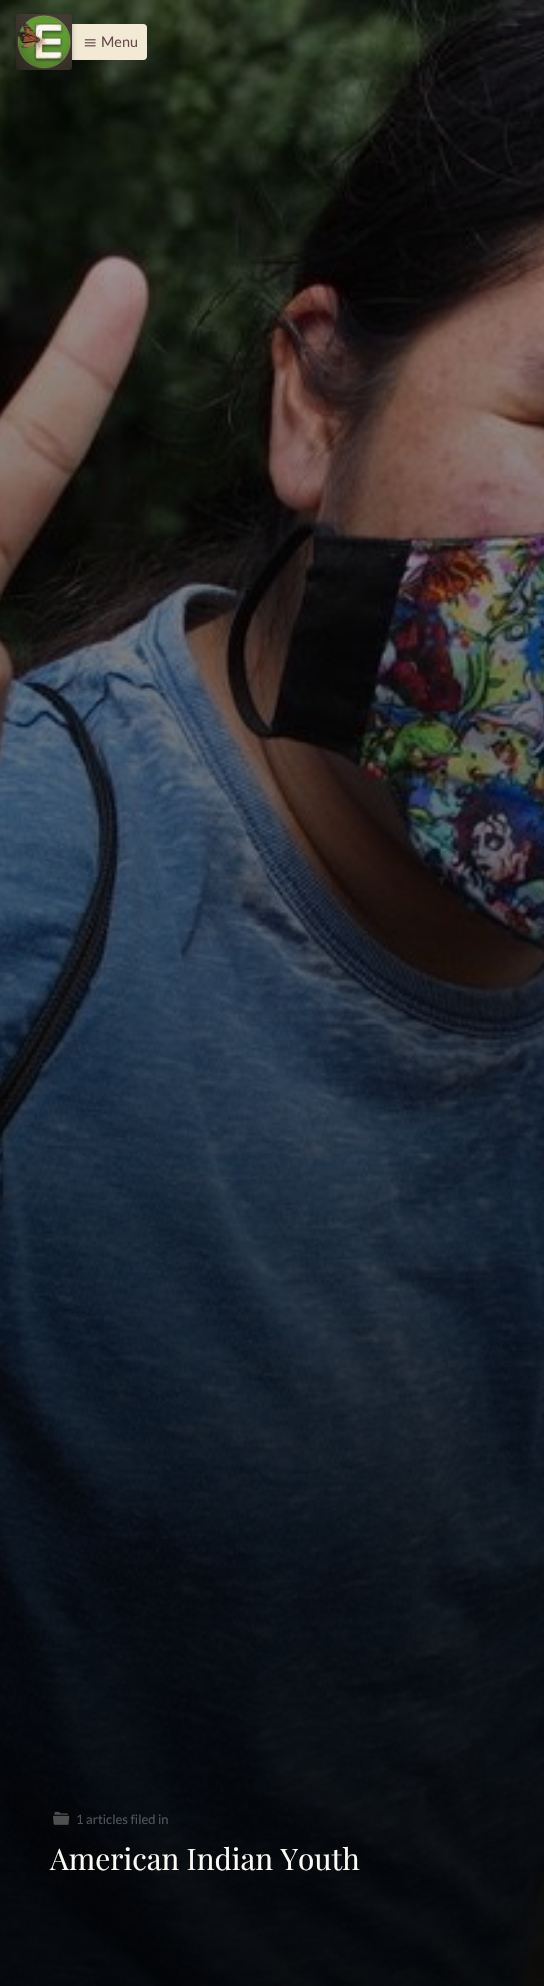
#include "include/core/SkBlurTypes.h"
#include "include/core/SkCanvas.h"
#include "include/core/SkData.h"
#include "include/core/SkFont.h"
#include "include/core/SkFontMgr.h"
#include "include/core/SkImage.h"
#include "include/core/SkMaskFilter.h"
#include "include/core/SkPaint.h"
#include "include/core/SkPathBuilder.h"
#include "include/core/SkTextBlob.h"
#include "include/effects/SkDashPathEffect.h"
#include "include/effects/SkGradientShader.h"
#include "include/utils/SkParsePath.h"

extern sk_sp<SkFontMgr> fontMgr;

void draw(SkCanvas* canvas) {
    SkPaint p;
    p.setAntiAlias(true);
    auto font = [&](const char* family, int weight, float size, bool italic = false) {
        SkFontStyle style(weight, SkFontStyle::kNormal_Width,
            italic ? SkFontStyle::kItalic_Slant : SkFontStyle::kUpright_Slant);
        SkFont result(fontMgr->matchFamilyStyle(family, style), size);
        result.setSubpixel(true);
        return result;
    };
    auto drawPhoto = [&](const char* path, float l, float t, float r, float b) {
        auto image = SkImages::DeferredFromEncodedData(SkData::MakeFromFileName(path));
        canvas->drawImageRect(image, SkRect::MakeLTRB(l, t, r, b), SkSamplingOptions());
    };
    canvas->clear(0xFFFFFFFF);
    drawPhoto("media/3.png", 0, 0, 544, 1986);
    p.setColor(0xFFF3EAD6);
    canvas->drawRoundRect(SkRect::MakeLTRB(63, 24, 147, 60), 4, 4, p);
    p.setColor(0x42000000);
    p.setMaskFilter(SkMaskFilter::MakeBlur(kNormal_SkBlurStyle, 2.5f));
    canvas->drawRoundRect(SkRect::MakeLTRB(16, 16, 72, 72), 3, 3, p);
    p.setMaskFilter(nullptr);
    drawPhoto("media/1.png", 16, 14, 72, 70);
    drawPhoto("media/2.png", 84, 39, 96, 47);
    auto font1 = font("Lato", 400, 14.5f);
    p.setColor(0xFF694C4C);
    canvas->drawString("Menu", 101, 47, font1, p);
    drawPhoto("media/4.png", 53, 1811, 70, 1825);
    auto font2 = font("Lato", 400, 13);
    p.setColor(0xFF505355);
    canvas->drawString("1 articles filed in", 76, 1824, font2, p);
    auto font3 = font("Playfair Display", 400, 29.75f);
    p.setColor(0xFFFCFAF5);
    canvas->drawString("American Indian Youth", 50, 1870, font3, p);
}
